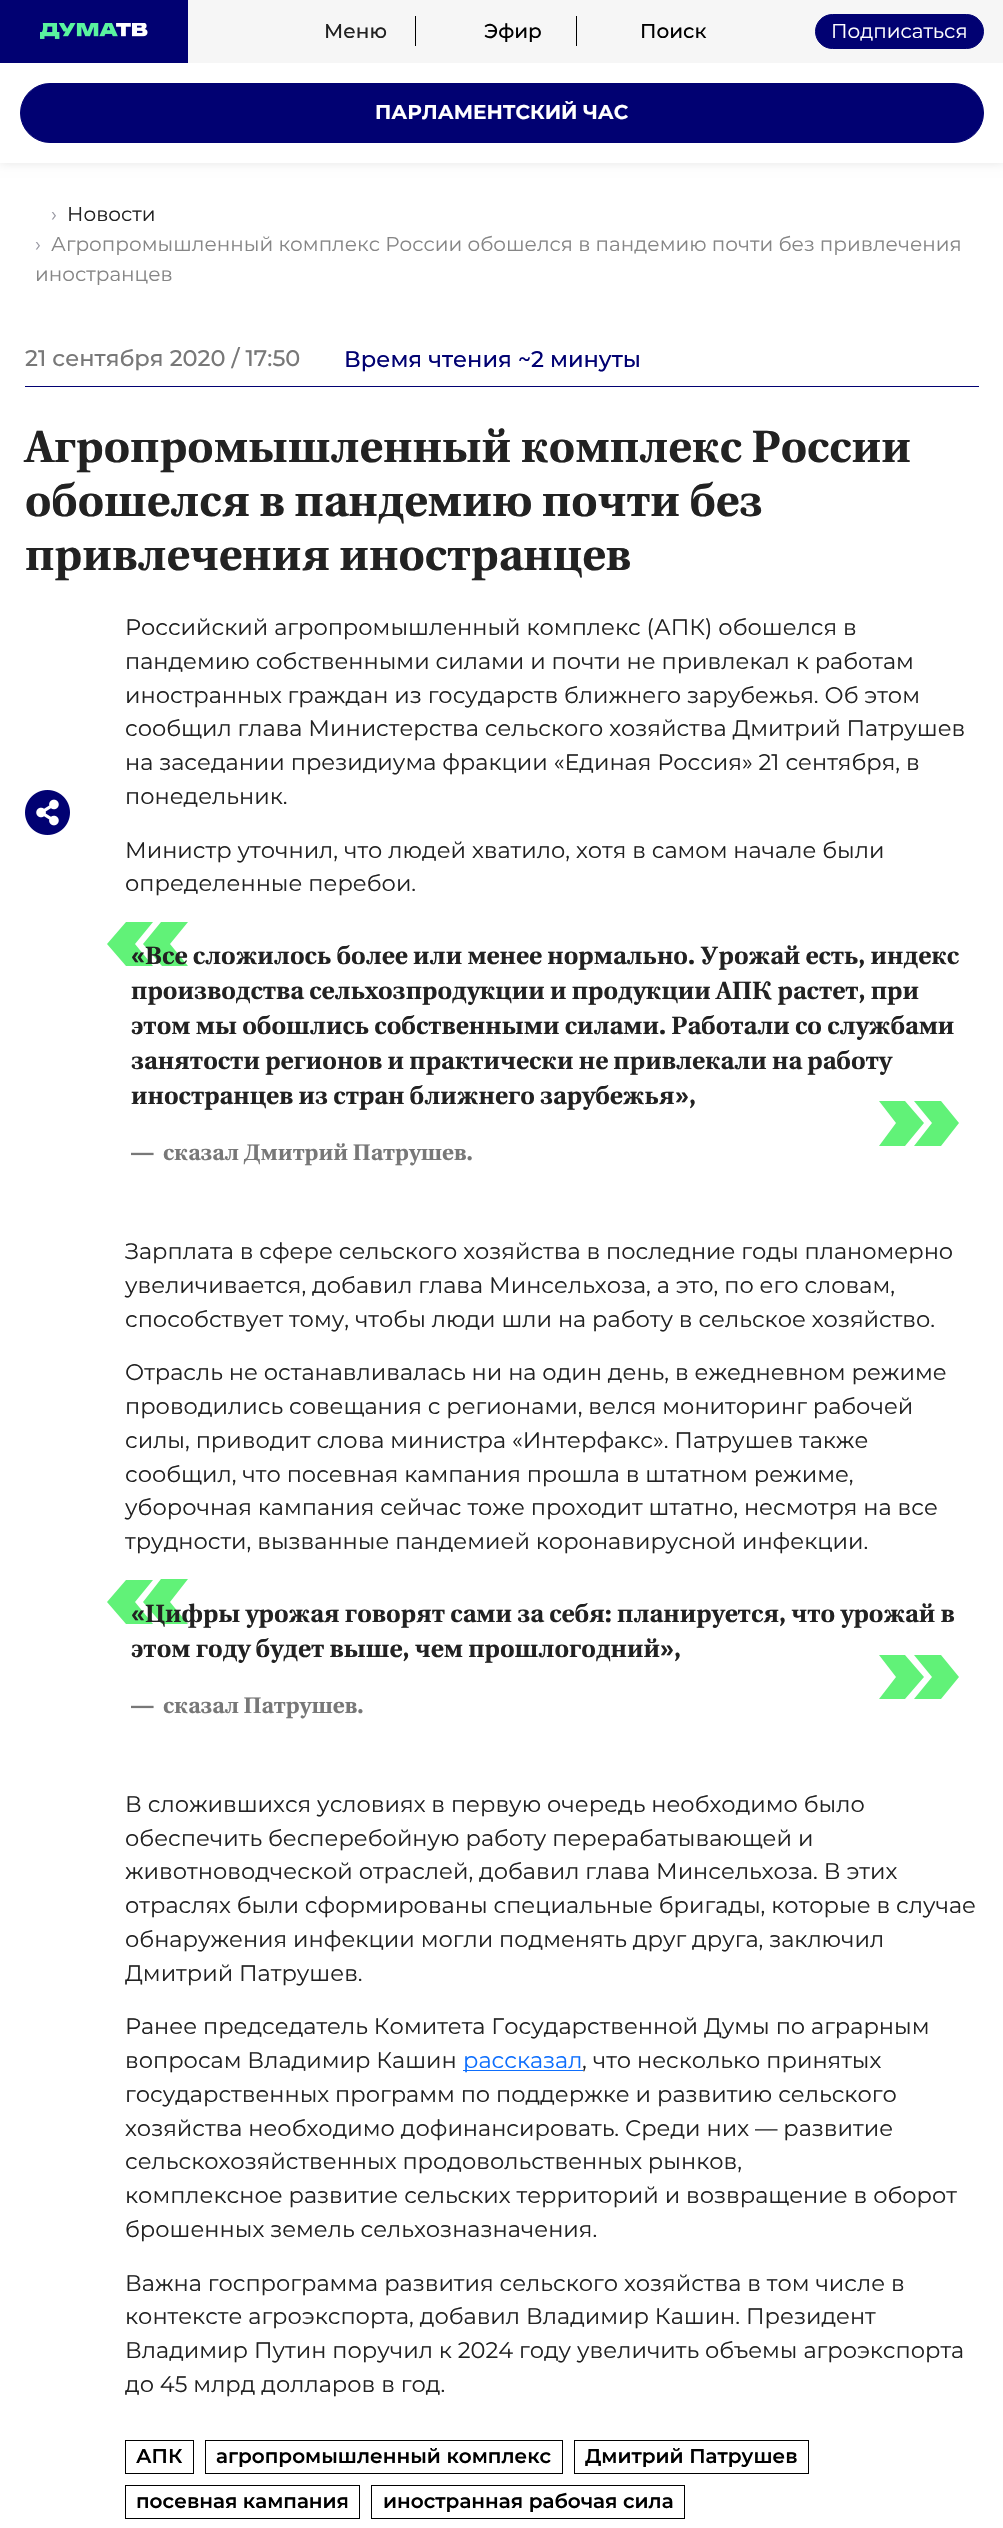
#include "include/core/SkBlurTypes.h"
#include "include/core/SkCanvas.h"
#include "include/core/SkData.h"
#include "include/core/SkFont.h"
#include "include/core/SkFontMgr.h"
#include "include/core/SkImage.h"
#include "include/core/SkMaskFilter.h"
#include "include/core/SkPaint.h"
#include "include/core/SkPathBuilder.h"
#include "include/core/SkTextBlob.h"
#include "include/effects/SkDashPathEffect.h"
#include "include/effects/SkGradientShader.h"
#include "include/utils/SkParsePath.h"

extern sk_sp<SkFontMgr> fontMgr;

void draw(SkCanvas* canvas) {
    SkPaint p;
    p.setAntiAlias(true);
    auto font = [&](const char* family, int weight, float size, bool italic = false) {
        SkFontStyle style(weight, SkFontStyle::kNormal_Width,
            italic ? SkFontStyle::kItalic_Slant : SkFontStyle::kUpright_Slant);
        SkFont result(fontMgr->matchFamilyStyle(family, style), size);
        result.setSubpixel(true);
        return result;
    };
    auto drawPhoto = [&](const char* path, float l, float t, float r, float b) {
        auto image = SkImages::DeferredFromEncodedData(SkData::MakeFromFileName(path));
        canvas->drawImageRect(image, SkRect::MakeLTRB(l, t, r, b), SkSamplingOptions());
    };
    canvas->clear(0xFFFFFFFF);
    p.setColor(0x1A000000);
    p.setMaskFilter(SkMaskFilter::MakeBlur(kNormal_SkBlurStyle, 5));
    canvas->drawRect(SkRect::MakeLTRB(0, 63, 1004, 163), p);
    p.setMaskFilter(nullptr);
    p.setColor(0xFFF6F6F6);
    canvas->drawRect(SkRect::MakeLTRB(188, 0, 1003, 63), p);
    p.setColor(0xFF010172);
    canvas->drawRect(SkRect::MakeLTRB(0, 0, 188, 63), p);
    drawPhoto("media/1.png", 40, 23, 148, 39);
    auto font1 = font("Montserrat", 500, 20);
    p.setColor(0xFF222222);
    canvas->drawString("Меню", 324, 38, font1, p);
    p.setColor(0xFF000000);
    canvas->drawRect(SkRect::MakeLTRB(415, 16, 416, 46), p);
    canvas->drawString("Эфир", 484, 38, font1, p);
    canvas->drawRect(SkRect::MakeLTRB(576, 16, 577, 46), p);
    canvas->drawString("Поиск", 640, 38, font1, p);
    p.setColor(0xFF010172);
    canvas->drawRoundRect(SkRect::MakeLTRB(815.5f, 14.5f, 983.5f, 48.5f), 17, 17, p);
    p.setStyle(SkPaint::kStroke_Style);
    p.setStrokeWidth(1);
    canvas->drawRoundRect(SkRect::MakeLTRB(815.5f, 14.5f, 983.5f, 48.5f), 17, 17, p);
    auto font2 = font("Montserrat", 400, 20);
    p.setStyle(SkPaint::kFill_Style);
    p.setColor(0xFFFFFFFF);
    canvas->drawString("Подписаться", 831, 38, font2, p);
    canvas->drawRect(SkRect::MakeLTRB(0, 63, 1003, 163), p);
    p.setColor(0xFF010172);
    canvas->drawRoundRect(SkRect::MakeLTRB(20.5f, 83.5f, 983.5f, 142.5f), 29.5f, 29.5f, p);
    p.setStyle(SkPaint::kStroke_Style);
    canvas->drawRoundRect(SkRect::MakeLTRB(20.5f, 83.5f, 983.5f, 142.5f), 29.5f, 29.5f, p);
    auto font3 = font("Montserrat", 700, 20);
    p.setStyle(SkPaint::kFill_Style);
    p.setColor(0xFFFFFFFF);
    canvas->drawString("ПАРЛАМЕНТСКИЙ ЧАС", 375, 119, font3, p);
    p.setColor(0xFF9999A3);
    canvas->drawString("›", 51, 221, font2, p);
    p.setColor(0xFF222222);
    canvas->drawString("Новости", 67, 221, font2, p);
    p.setColor(0xFF9999A3);
    canvas->drawString("›", 35, 251, font2, p);
    p.setColor(0xFF868686);
    canvas->drawString("Агропромышленный комплекс России обошелся в пандемию почти без привлечения", 51, 251, font2, p);
    canvas->drawString("иностранцев", 35, 281, font2, p);
    p.setColor(0xFF010172);
    canvas->drawRect(SkRect::MakeLTRB(25, 386, 979, 387), p);
    auto font4 = font("Montserrat", 500, 22.5f);
    p.setColor(0xFF787878);
    canvas->drawString("21 сентября 2020 / 17:50", 25, 366, font4, p);
    p.setColor(0xFF010172);
    canvas->drawString("Время чтения ~2 минуты", 344, 367, font4, p);
    auto font5 = font("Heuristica", 700, 45);
    p.setColor(0xFF222222);
    {
        const struct { const char* s; float x, y; } items[] = {
            {"Агропромышленный комплекс России", 25, 462},
            {"обошелся в пандемию почти без", 25, 516},
            {"привлечения иностранцев", 25, 570},
        };
        for (auto [s, x, y] : items) {
            canvas->drawString(s, x, y, font5, p);
        }
    }
    auto font6 = font("Montserrat", 400, 22.5f);
    {
        const struct { const char* s; float x, y; } items[] = {
            {"Российский агропромышленный комплекс (АПК) обошелся в", 125, 635},
            {"пандемию собственными силами и почти не привлекал к работам", 125, 669},
            {"иностранных граждан из государств ближнего зарубежья. Об этом", 125, 703},
            {"сообщил глава Министерства сельского хозяйства Дмитрий Патрушев", 125, 736},
            {"на заседании президиума фракции «Единая Россия» 21 сентября, в", 125, 770},
            {"понедельник.", 125, 804},
        };
        for (auto [s, x, y] : items) {
            canvas->drawString(s, x, y, font6, p);
        }
    }
    drawPhoto("media/2.png", 25, 790, 70, 835);
    canvas->drawString("Министр уточнил, что людей хватило, хотя в самом начале были", 125, 858, font6, p);
    canvas->drawString("определенные перебои.", 125, 891, font6, p);
    p.setColor(0xFF61F278);
    canvas->drawPath(SkPathBuilder().moveTo(107, 944).lineTo(126, 922).lineTo(153, 922).lineTo(135, 944).lineTo(153, 966).lineTo(126, 966).close().moveTo(143, 944).lineTo(161, 922).lineTo(188, 922).lineTo(170, 944).lineTo(188, 966).lineTo(162, 966).close().detach(), p);
    auto font7 = font("Liberation Sans", 700, 25);
    p.setColor(0xFF222222);
    canvas->drawString("«", 131, 964, font7, p);
    auto font8 = font("Heuristica", 700, 25);
    {
        const struct { const char* s; float x, y; } items[] = {
            {"Все сложилось более или менее нормально. Урожай есть, индекс", 145, 964},
            {"производства сельхозпродукции и продукции АПК растет, при", 131, 999},
            {"этом мы обошлись собственными силами. Работали со службами", 131, 1034},
            {"занятости регионов и практически не привлекали на работу", 131, 1069},
            {"иностранцев из стран ближнего зарубежья", 131, 1104},
        };
        for (auto [s, x, y] : items) {
            canvas->drawString(s, x, y, font8, p);
        }
    }
    canvas->drawString("»", 675, 1104, font7, p);
    canvas->drawString(",", 689, 1104, font8, p);
    p.setColor(0xFF61F278);
    canvas->drawPath(SkPathBuilder().moveTo(959, 1123).lineTo(941, 1146).lineTo(914, 1146).lineTo(932, 1123).lineTo(914, 1101).lineTo(941, 1101).close().moveTo(924, 1123).lineTo(905, 1146).lineTo(879, 1146).lineTo(896, 1123).lineTo(879, 1101).lineTo(905, 1101).close().detach(), p);
    auto font9 = font("Liberation Sans", 700, 22.5f);
    p.setColor(0xFF787878);
    canvas->drawString("—", 131, 1160, font9, p);
    auto font10 = font("Heuristica", 700, 22.5f);
    canvas->drawString("сказал Дмитрий Патрушев.", 163, 1160, font10, p);
    p.setColor(0xFF222222);
    {
        const struct { const char* s; float x, y; } items[] = {
            {"Зарплата в сфере сельского хозяйства в последние годы планомерно", 125, 1259},
            {"увеличивается, добавил глава Минсельхоза, а это, по его словам,", 125, 1293},
            {"способствует тому, чтобы люди шли на работу в сельское хозяйство.", 125, 1327},
            {"Отрасль не останавливалась ни на один день, в ежедневном режиме", 125, 1380},
            {"проводились совещания с регионами, велся мониторинг рабочей", 125, 1414},
            {"силы, приводит слова министра «Интерфакс». Патрушев также", 125, 1448},
            {"сообщил, что посевная кампания прошла в штатном режиме,", 125, 1482},
            {"уборочная кампания сейчас тоже проходит штатно, несмотря на все", 125, 1515},
            {"трудности, вызванные пандемией коронавирусной инфекции.", 125, 1549},
        };
        for (auto [s, x, y] : items) {
            canvas->drawString(s, x, y, font6, p);
        }
    }
    p.setColor(0xFF61F278);
    canvas->drawPath(SkPathBuilder().moveTo(107, 1602).lineTo(126, 1580).lineTo(153, 1580).lineTo(135, 1602).lineTo(153, 1624).lineTo(126, 1624).close().moveTo(143, 1602).lineTo(161, 1579).lineTo(188, 1579).lineTo(170, 1602).lineTo(188, 1624).lineTo(162, 1624).close().detach(), p);
    p.setColor(0xFF222222);
    canvas->drawString("«", 131, 1622, font7, p);
    canvas->drawString("Цифры урожая говорят сами за себя: планируется, что урожай в", 145, 1622, font8, p);
    canvas->drawString("этом году будет выше, чем прошлогодний", 131, 1657, font8, p);
    canvas->drawString("»", 660, 1657, font7, p);
    canvas->drawString(",", 674, 1657, font8, p);
    p.setColor(0xFF61F278);
    canvas->drawPath(SkPathBuilder().moveTo(959, 1677).lineTo(941, 1699).lineTo(914, 1699).lineTo(932, 1677).lineTo(914, 1655).lineTo(941, 1655).close().moveTo(924, 1677).lineTo(905, 1699).lineTo(879, 1699).lineTo(896, 1677).lineTo(879, 1655).lineTo(905, 1655).close().detach(), p);
    p.setColor(0xFF787878);
    canvas->drawString("—", 131, 1713, font9, p);
    canvas->drawString("сказал Патрушев.", 163, 1713, font10, p);
    p.setColor(0xFF222222);
    {
        const struct { const char* s; float x, y; } items[] = {
            {"В сложившихся условиях в первую очередь необходимо было", 125, 1812},
            {"обеспечить бесперебойную работу перерабатывающей и", 125, 1846},
            {"животноводческой отраслей, добавил глава Минсельхоза. В этих", 125, 1879},
            {"отраслях были сформированы специальные бригады, которые в случае", 125, 1913},
            {"обнаружения инфекции могли подменять друг друга, заключил", 125, 1947},
            {"Дмитрий Патрушев.", 125, 1981},
            {"Ранее председатель Комитета Государственной Думы по аграрным", 125, 2034},
            {"вопросам Владимир Кашин", 125, 2068},
        };
        for (auto [s, x, y] : items) {
            canvas->drawString(s, x, y, font6, p);
        }
    }
    p.setColor(0xFF0D6EFD);
    canvas->drawRect(SkRect::MakeLTRB(463, 2070, 583, 2071), p);
    canvas->drawString("рассказал", 463, 2068, font6, p);
    p.setColor(0xFF222222);
    {
        const struct { const char* s; float x, y; } items[] = {
            {", что несколько принятых", 582, 2068},
            {"государственных программ по поддержке и развитию сельского", 125, 2102},
            {"хозяйства необходимо дофинансировать. Среди них — развитие", 125, 2136},
            {"сельскохозяйственных продовольственных рынков,", 125, 2169},
            {"комплексное развитие сельских территорий и возвращение в оборот", 125, 2203},
            {"брошенных земель сельхозназначения.", 125, 2237},
            {"Важна госпрограмма развития сельского хозяйства в том числе в", 125, 2291},
            {"контексте агроэкспорта, добавил Владимир Кашин. Президент", 125, 2324},
            {"Владимир Путин поручил к 2024 году увеличить объемы агроэкспорта", 125, 2358},
            {"до 45 млрд долларов в год.", 125, 2392},
        };
        for (auto [s, x, y] : items) {
            canvas->drawString(s, x, y, font6, p);
        }
    }
    p.setStyle(SkPaint::kStroke_Style);
    p.setColor(0xFF000000);
    canvas->drawRect(SkRect::MakeLTRB(125.5f, 2440.5f, 193.5f, 2473.5f), p);
    auto font11 = font("Montserrat", 600, 20);
    p.setStyle(SkPaint::kFill_Style);
    canvas->drawString("АПК", 136, 2463, font11, p);
    p.setStyle(SkPaint::kStroke_Style);
    canvas->drawRect(SkRect::MakeLTRB(205.5f, 2440.5f, 562.5f, 2473.5f), p);
    p.setStyle(SkPaint::kFill_Style);
    canvas->drawString("агропромышленный комплекс", 216, 2463, font11, p);
    p.setStyle(SkPaint::kStroke_Style);
    canvas->drawRect(SkRect::MakeLTRB(574.5f, 2440.5f, 808.5f, 2473.5f), p);
    p.setStyle(SkPaint::kFill_Style);
    canvas->drawString("Дмитрий Патрушев", 585, 2463, font11, p);
    p.setStyle(SkPaint::kStroke_Style);
    canvas->drawRect(SkRect::MakeLTRB(125.5f, 2485.5f, 359.5f, 2518.5f), p);
    p.setStyle(SkPaint::kFill_Style);
    canvas->drawString("посевная кампания", 136, 2508, font11, p);
    p.setStyle(SkPaint::kStroke_Style);
    canvas->drawRect(SkRect::MakeLTRB(371.5f, 2485.5f, 684.5f, 2518.5f), p);
    p.setStyle(SkPaint::kFill_Style);
    canvas->drawString("иностранная рабочая сила", 383, 2508, font11, p);
}
